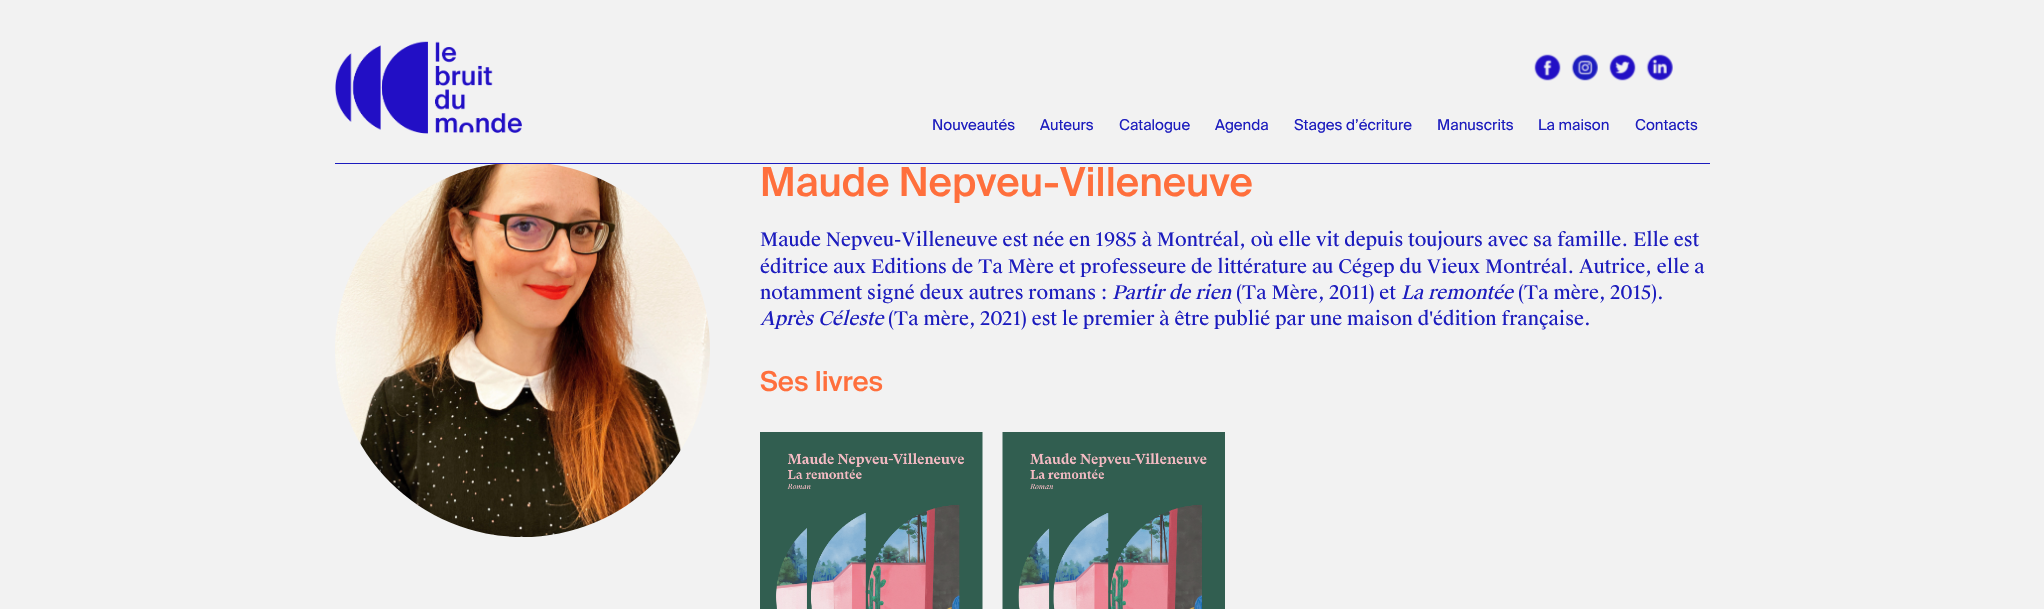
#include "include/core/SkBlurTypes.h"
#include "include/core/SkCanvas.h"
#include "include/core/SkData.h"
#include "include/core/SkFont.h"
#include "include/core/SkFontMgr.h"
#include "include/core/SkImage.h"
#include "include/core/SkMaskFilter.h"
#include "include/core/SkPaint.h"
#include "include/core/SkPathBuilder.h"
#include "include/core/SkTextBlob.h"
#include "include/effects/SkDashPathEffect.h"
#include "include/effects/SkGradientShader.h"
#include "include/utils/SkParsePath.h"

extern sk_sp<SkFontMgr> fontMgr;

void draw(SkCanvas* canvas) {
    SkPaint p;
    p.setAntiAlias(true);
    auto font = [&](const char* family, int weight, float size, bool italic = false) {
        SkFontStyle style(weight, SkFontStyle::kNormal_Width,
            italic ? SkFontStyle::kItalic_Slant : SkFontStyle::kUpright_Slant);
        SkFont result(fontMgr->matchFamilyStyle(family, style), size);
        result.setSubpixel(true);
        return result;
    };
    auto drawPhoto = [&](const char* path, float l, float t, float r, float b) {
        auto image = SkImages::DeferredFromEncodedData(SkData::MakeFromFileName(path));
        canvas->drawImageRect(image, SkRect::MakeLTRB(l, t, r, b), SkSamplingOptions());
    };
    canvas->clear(0xFFF2F2F2);
    p.setStyle(SkPaint::kStroke_Style);
    p.setStrokeWidth(1);
    p.setColor(0xFF1C1CBE);
    canvas->drawRect(SkRect::MakeLTRB(335.5f, 0.5f, 1709.5f, 163.5f), p);
    p.setStyle(SkPaint::kFill_Style);
    p.setColor(0xFFF2F2F2);
    canvas->drawRect(SkRect::MakeLTRB(335, 0, 1710, 163), p);
    drawPhoto("media/1.png", 335, 41, 522, 134);
    drawPhoto("media/2.png", 1534, 54, 1561, 81);
    drawPhoto("media/3.png", 1571, 54, 1598, 81);
    drawPhoto("media/4.png", 1609, 54, 1636, 81);
    drawPhoto("media/5.png", 1646, 54, 1673, 81);
    auto font1 = font("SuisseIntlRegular", 400, 15);
    p.setColor(0xFF1C1CBE);
    {
        const struct { const char* s; float x, y; } items[] = {
            {"Nouveautés", 932, 130},
            {"Auteurs", 1040, 130},
            {"Catalogue", 1119, 130},
            {"Agenda", 1215, 130},
            {"Stages d’écriture", 1294, 130},
            {"Manuscrits", 1437, 130},
            {"La maison", 1538, 130},
            {"Contacts", 1635, 130},
        };
        for (auto [s, x, y] : items) {
            canvas->drawString(s, x, y, font1, p);
        }
    }
    drawPhoto("media/6.png", 335, 164, 710, 537);
    auto font2 = font("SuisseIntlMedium", 500, 40);
    p.setColor(0xFFFF6F3C);
    canvas->drawString("Maude Nepveu-Villeneuve", 760, 196, font2, p);
    auto font3 = font("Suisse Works", 400, 18.75f);
    p.setColor(0xFF1C1CBE);
    {
        const struct { const char* s; float x, y; } items[] = {
            {"Maude Nepveu-Villeneuve est née en 1985 à Montréal, où elle vit depuis toujours avec sa famille. Elle est", 760, 246},
            {"éditrice aux Editions de Ta Mère et professeure de littérature au Cégep du Vieux Montréal. Autrice, elle a", 760, 273},
            {"notamment signé deux autres romans :", 760, 299},
        };
        for (auto [s, x, y] : items) {
            canvas->drawString(s, x, y, font3, p);
        }
    }
    auto font4 = font("Suisse Works", 400, 18.75f, true);
    canvas->drawString("Partir de rien", 1112, 299, font4, p);
    canvas->drawString("(Ta Mère, 2011) et", 1236, 299, font3, p);
    canvas->drawString("La remontée", 1401, 299, font4, p);
    canvas->drawString("(Ta mère, 2015).", 1518, 299, font3, p);
    canvas->drawString("Après Céleste", 760, 325, font4, p);
    canvas->drawString("(Ta mère, 2021) est le premier à être publié par une maison d'édition française.", 888, 325, font3, p);
    auto font5 = font("SuisseIntlMedium", 500, 27.5f);
    p.setColor(0xFFFF6F3C);
    canvas->drawString("Ses livres", 760, 391, font5, p);
    drawPhoto("media/7.png", 760, 432, 983, 609);
    drawPhoto("media/8.png", 1002, 432, 1225, 609);
}
